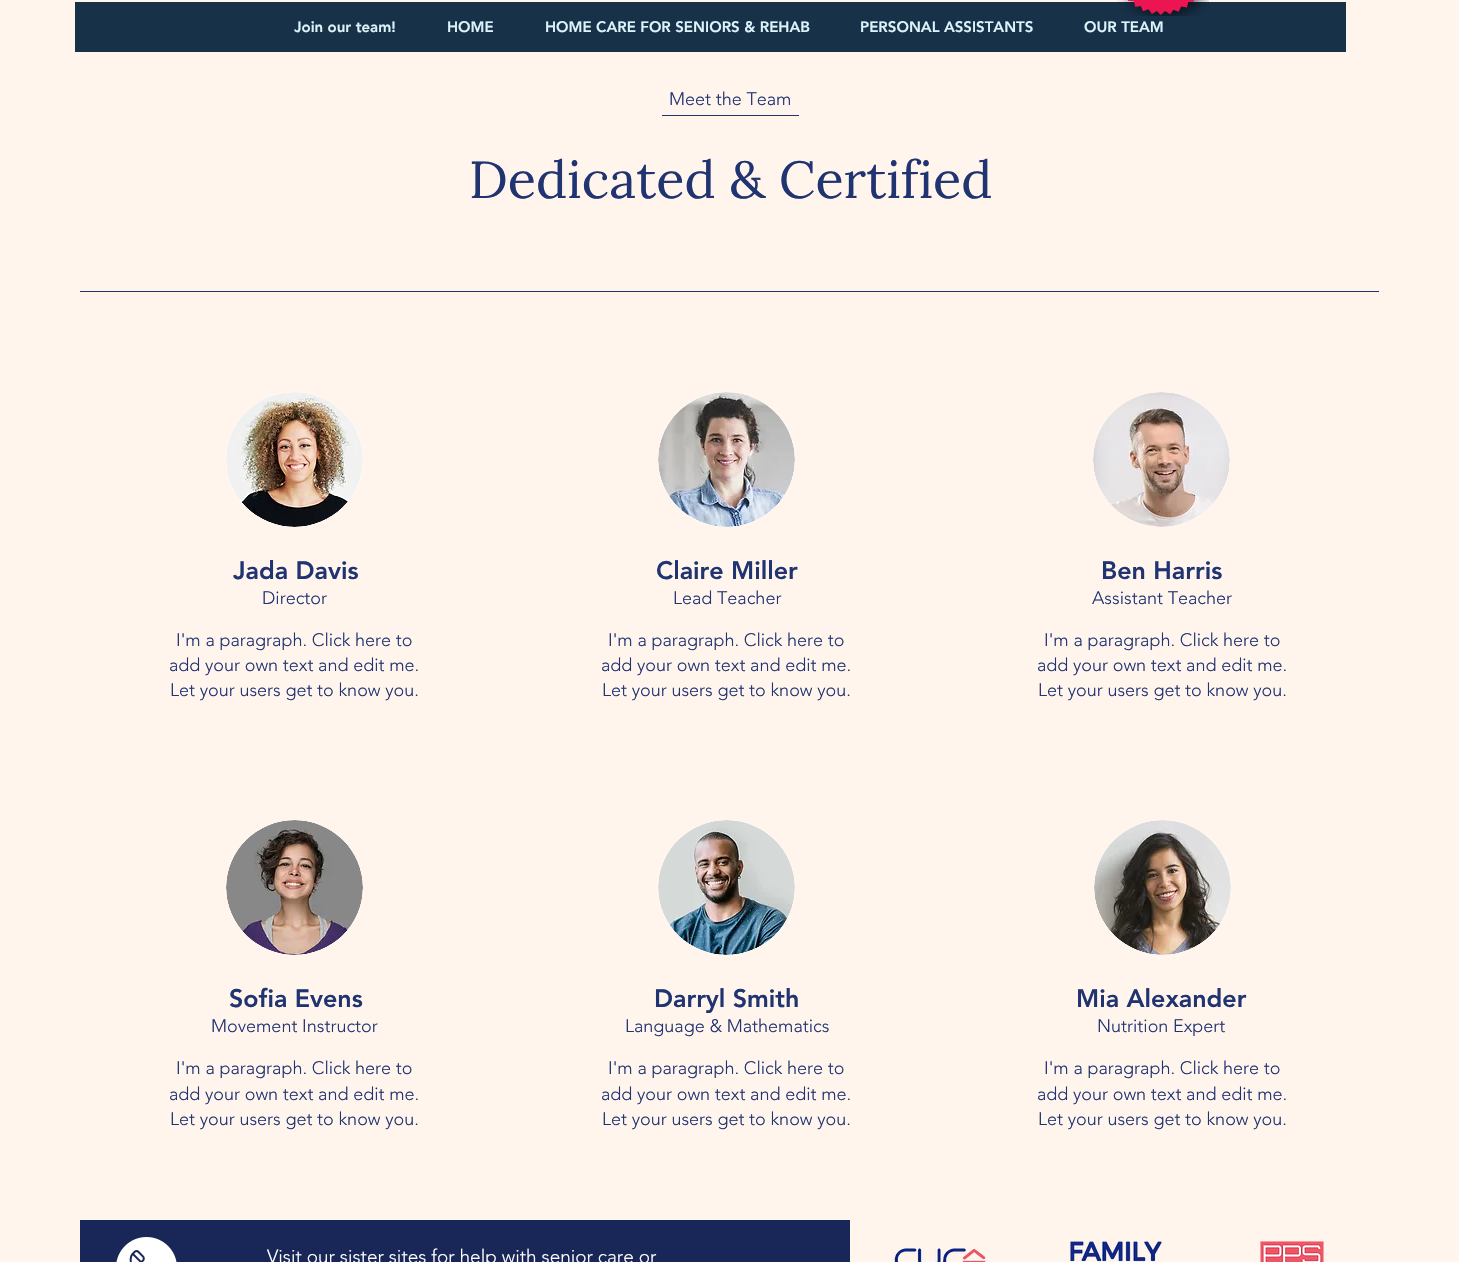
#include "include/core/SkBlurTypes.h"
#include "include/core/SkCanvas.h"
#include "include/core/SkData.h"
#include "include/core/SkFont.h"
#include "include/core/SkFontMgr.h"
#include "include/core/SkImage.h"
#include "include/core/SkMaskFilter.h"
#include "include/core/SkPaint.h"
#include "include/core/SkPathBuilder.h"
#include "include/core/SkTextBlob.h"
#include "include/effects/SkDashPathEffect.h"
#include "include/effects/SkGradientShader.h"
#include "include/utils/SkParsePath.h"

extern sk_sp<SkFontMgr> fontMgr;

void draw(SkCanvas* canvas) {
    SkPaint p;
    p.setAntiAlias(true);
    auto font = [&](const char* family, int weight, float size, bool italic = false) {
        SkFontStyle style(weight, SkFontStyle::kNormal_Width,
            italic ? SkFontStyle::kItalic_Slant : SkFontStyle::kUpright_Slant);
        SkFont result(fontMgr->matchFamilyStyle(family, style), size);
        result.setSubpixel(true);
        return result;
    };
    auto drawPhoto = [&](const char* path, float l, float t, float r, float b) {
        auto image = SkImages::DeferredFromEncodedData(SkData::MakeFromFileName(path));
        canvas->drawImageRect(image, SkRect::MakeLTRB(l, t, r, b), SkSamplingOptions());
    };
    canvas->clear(0xFFFFF5ED);
    p.setColor(0xFF173148);
    canvas->drawRect(SkRect::MakeLTRB(75, 2, 1346, 52), p);
    drawPhoto("media/1.png", 1117, 0, 1209, 16);
    auto font1 = font("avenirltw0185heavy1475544", 900, 15);
    p.setColor(0xFFDCF3FB);
    {
        const struct { const char* s; float x, y; } items[] = {
            {"Join our team!", 294, 32},
            {"HOME", 447, 32},
            {"HOME CARE FOR SENIORS & REHAB", 545, 32},
            {"PERSONAL ASSISTANTS", 860, 32},
            {"OUR TEAM", 1084, 32},
        };
        for (auto [s, x, y] : items) {
            canvas->drawString(s, x, y, font1, p);
        }
    }
    auto font2 = font("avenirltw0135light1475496", 300, 18);
    p.setColor(0xFF213472);
    canvas->drawString("Meet the Team", 669, 105, font2, p);
    canvas->drawRect(SkRect::MakeLTRB(662, 115, 799, 116), p);
    auto font3 = font("Lora", 400, 52);
    canvas->drawString("Dedicated & Certified", 469, 198, font3, p);
    canvas->drawRect(SkRect::MakeLTRB(80, 291, 1379, 292), p);
    p.setColor(0xFFFFFFFF);
    canvas->drawOval(SkRect::MakeLTRB(226, 392, 363, 527), p);
    drawPhoto("media/2.png", 226, 392, 363, 527);
    auto font4 = font("avenirltw0185heavy1475544", 900, 25);
    p.setColor(0xFF213472);
    canvas->drawString("Jada Davis", 233, 579, font4, p);
    {
        const struct { const char* s; float x, y; } items[] = {
            {"Director", 262, 604},
            {"I'm a paragraph. Click here to", 176, 646},
            {"add your own text and edit me.", 169, 671},
            {"Let your users get to know you.", 170, 696},
        };
        for (auto [s, x, y] : items) {
            canvas->drawString(s, x, y, font2, p);
        }
    }
    p.setColor(0xFFFFFFFF);
    canvas->drawOval(SkRect::MakeLTRB(658, 392, 795, 527), p);
    drawPhoto("media/3.png", 658, 392, 795, 527);
    p.setColor(0xFF213472);
    canvas->drawString("Claire Miller", 656, 579, font4, p);
    {
        const struct { const char* s; float x, y; } items[] = {
            {"Lead Teacher", 673, 604},
            {"I'm a paragraph. Click here to", 608, 646},
            {"add your own text and edit me.", 601, 671},
            {"Let your users get to know you.", 602, 696},
        };
        for (auto [s, x, y] : items) {
            canvas->drawString(s, x, y, font2, p);
        }
    }
    p.setColor(0xFFFFFFFF);
    canvas->drawOval(SkRect::MakeLTRB(1093, 392, 1230, 527), p);
    drawPhoto("media/4.png", 1093, 392, 1230, 527);
    p.setColor(0xFF213472);
    canvas->drawString("Ben Harris", 1101, 579, font4, p);
    {
        const struct { const char* s; float x, y; } items[] = {
            {"Assistant Teacher", 1092, 604},
            {"I'm a paragraph. Click here to", 1044, 646},
            {"add your own text and edit me.", 1037, 671},
            {"Let your users get to know you.", 1038, 696},
        };
        for (auto [s, x, y] : items) {
            canvas->drawString(s, x, y, font2, p);
        }
    }
    p.setColor(0xFFFFFFFF);
    canvas->drawOval(SkRect::MakeLTRB(226, 820, 363, 955), p);
    drawPhoto("media/5.png", 226, 820, 363, 955);
    p.setColor(0xFF213472);
    canvas->drawString("Sofia Evens", 229, 1007, font4, p);
    {
        const struct { const char* s; float x, y; } items[] = {
            {"Movement Instructor", 211, 1032},
            {"I'm a paragraph. Click here to", 176, 1074},
            {"add your own text and edit me.", 169, 1100},
            {"Let your users get to know you.", 170, 1125},
        };
        for (auto [s, x, y] : items) {
            canvas->drawString(s, x, y, font2, p);
        }
    }
    p.setColor(0xFFFFFFFF);
    canvas->drawOval(SkRect::MakeLTRB(658, 820, 795, 955), p);
    drawPhoto("media/6.png", 658, 820, 795, 955);
    p.setColor(0xFF213472);
    canvas->drawString("Darryl Smith", 654, 1007, font4, p);
    {
        const struct { const char* s; float x, y; } items[] = {
            {"Language & Mathematics", 625, 1032},
            {"I'm a paragraph. Click here to", 608, 1074},
            {"add your own text and edit me.", 601, 1100},
            {"Let your users get to know you.", 602, 1125},
        };
        for (auto [s, x, y] : items) {
            canvas->drawString(s, x, y, font2, p);
        }
    }
    p.setColor(0xFFFFFFFF);
    canvas->drawOval(SkRect::MakeLTRB(1094, 820, 1231, 955), p);
    drawPhoto("media/7.png", 1094, 820, 1231, 955);
    p.setColor(0xFF213472);
    canvas->drawString("Mia Alexander", 1076, 1007, font4, p);
    {
        const struct { const char* s; float x, y; } items[] = {
            {"Nutrition Expert", 1097, 1032},
            {"I'm a paragraph. Click here to", 1044, 1074},
            {"add your own text and edit me.", 1037, 1100},
            {"Let your users get to know you.", 1038, 1125},
        };
        for (auto [s, x, y] : items) {
            canvas->drawString(s, x, y, font2, p);
        }
    }
    p.setColor(0xFF182757);
    canvas->drawRect(SkRect::MakeLTRB(80, 1220, 850, 1262), p);
    drawPhoto("media/8.png", 116, 1237, 177, 1262);
    auto font5 = font("avenirltw0135light1475496", 300, 19);
    p.setColor(0xFFFFFFFF);
    canvas->drawString("Visit our sister sites for help with senior care or", 267, 1263, font5, p);
    drawPhoto("media/9.png", 894, 1248, 986, 1262);
    drawPhoto("media/10.png", 1070, 1241, 1162, 1262);
    drawPhoto("media/11.png", 1260, 1241, 1324, 1262);
}
